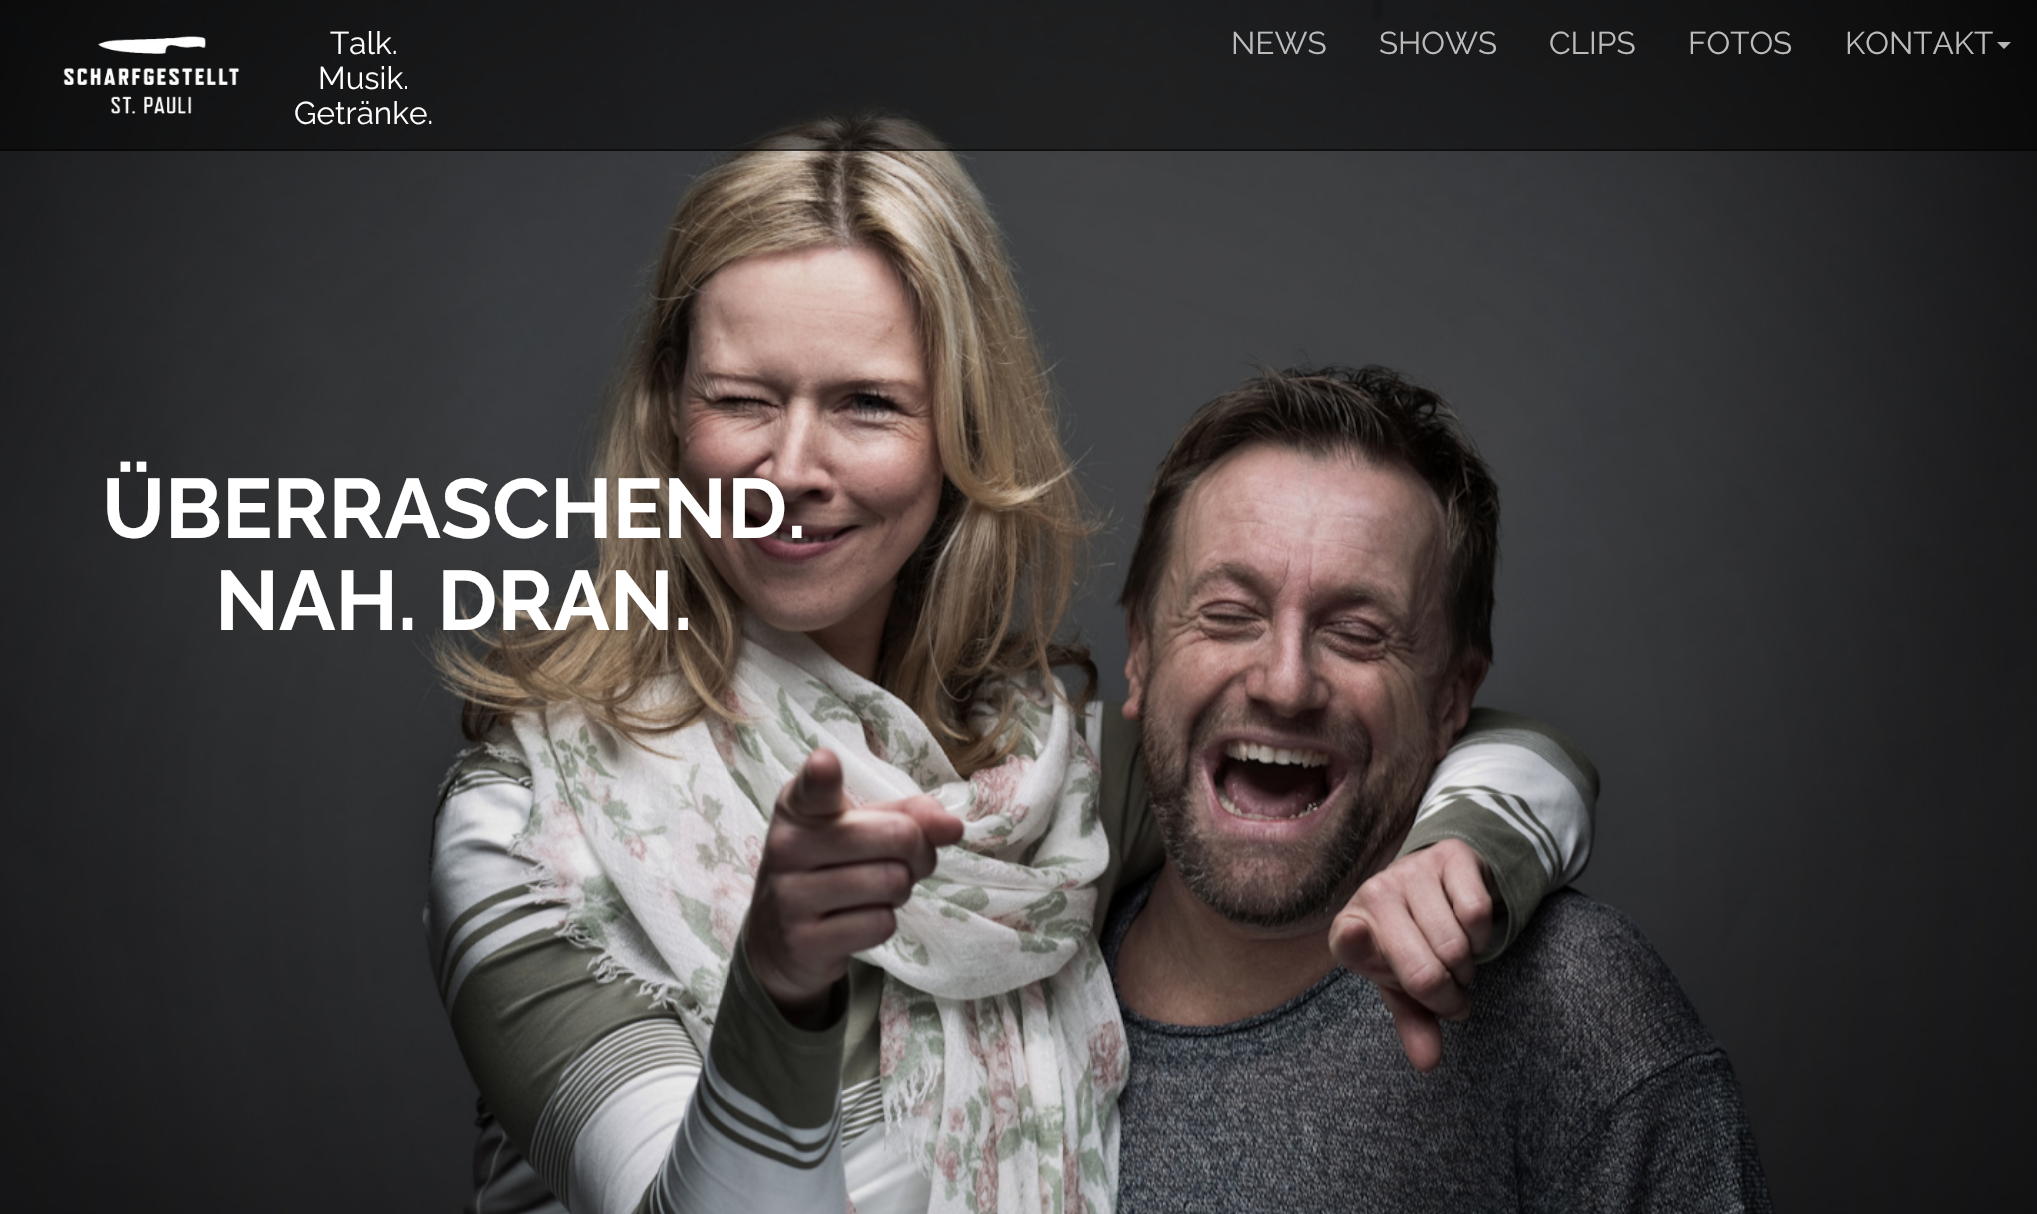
#include "include/core/SkBlurTypes.h"
#include "include/core/SkCanvas.h"
#include "include/core/SkData.h"
#include "include/core/SkFont.h"
#include "include/core/SkFontMgr.h"
#include "include/core/SkImage.h"
#include "include/core/SkMaskFilter.h"
#include "include/core/SkPaint.h"
#include "include/core/SkPathBuilder.h"
#include "include/core/SkTextBlob.h"
#include "include/effects/SkDashPathEffect.h"
#include "include/effects/SkGradientShader.h"
#include "include/utils/SkParsePath.h"

extern sk_sp<SkFontMgr> fontMgr;

void draw(SkCanvas* canvas) {
    SkPaint p;
    p.setAntiAlias(true);
    auto font = [&](const char* family, int weight, float size, bool italic = false) {
        SkFontStyle style(weight, SkFontStyle::kNormal_Width,
            italic ? SkFontStyle::kItalic_Slant : SkFontStyle::kUpright_Slant);
        SkFont result(fontMgr->matchFamilyStyle(family, style), size);
        result.setSubpixel(true);
        return result;
    };
    auto drawPhoto = [&](const char* path, float l, float t, float r, float b) {
        auto image = SkImages::DeferredFromEncodedData(SkData::MakeFromFileName(path));
        canvas->drawImageRect(image, SkRect::MakeLTRB(l, t, r, b), SkSamplingOptions());
    };
    canvas->clear(0xFFFFFFFF);
    drawPhoto("media/2.png", 0, 0, 2037, 1214);
    p.setColor(0x80000000);
    canvas->drawRect(SkRect::MakeLTRB(0, 0, 2037, 151), p);
    canvas->drawRect(SkRect::MakeLTRB(0, 149, 2037, 151), p);
    drawPhoto("media/1.png", 63, 36, 240, 114);
    auto font1 = font("Raleway", 400, 31.5f);
    p.setColor(0xFFFFFFFF);
    {
        const struct { const char* s; float x, y; } items[] = {
            {"Talk.", 330, 54},
            {"Musik.", 318, 89},
            {"Getränke.", 294, 124},
        };
        for (auto [s, x, y] : items) {
            canvas->drawString(s, x, y, font1, p);
        }
    }
    p.setColor(0xFFBBBBBC);
    {
        const struct { const char* s; float x, y; } items[] = {
            {"NEWS", 1231, 54},
            {"SHOWS", 1379, 54},
            {"CLIPS", 1549, 54},
            {"FOTOS", 1688, 54},
            {"KONTAKT", 1845, 54},
        };
        for (auto [s, x, y] : items) {
            canvas->drawString(s, x, y, font1, p);
        }
    }
    p.setColor(0xFFB6B6B6);
    canvas->drawPath(SkPathBuilder().moveTo(1997, 42).lineTo(2011, 42).lineTo(2004, 49).close().detach(), p);
    auto font2 = font("Raleway", 700, 84);
    p.setColor(0xFFFFFFFF);
    canvas->drawString("ÜBERRASCHEND.", 102, 538, font2, p);
    canvas->drawString("NAH. DRAN.", 215, 630, font2, p);
}
